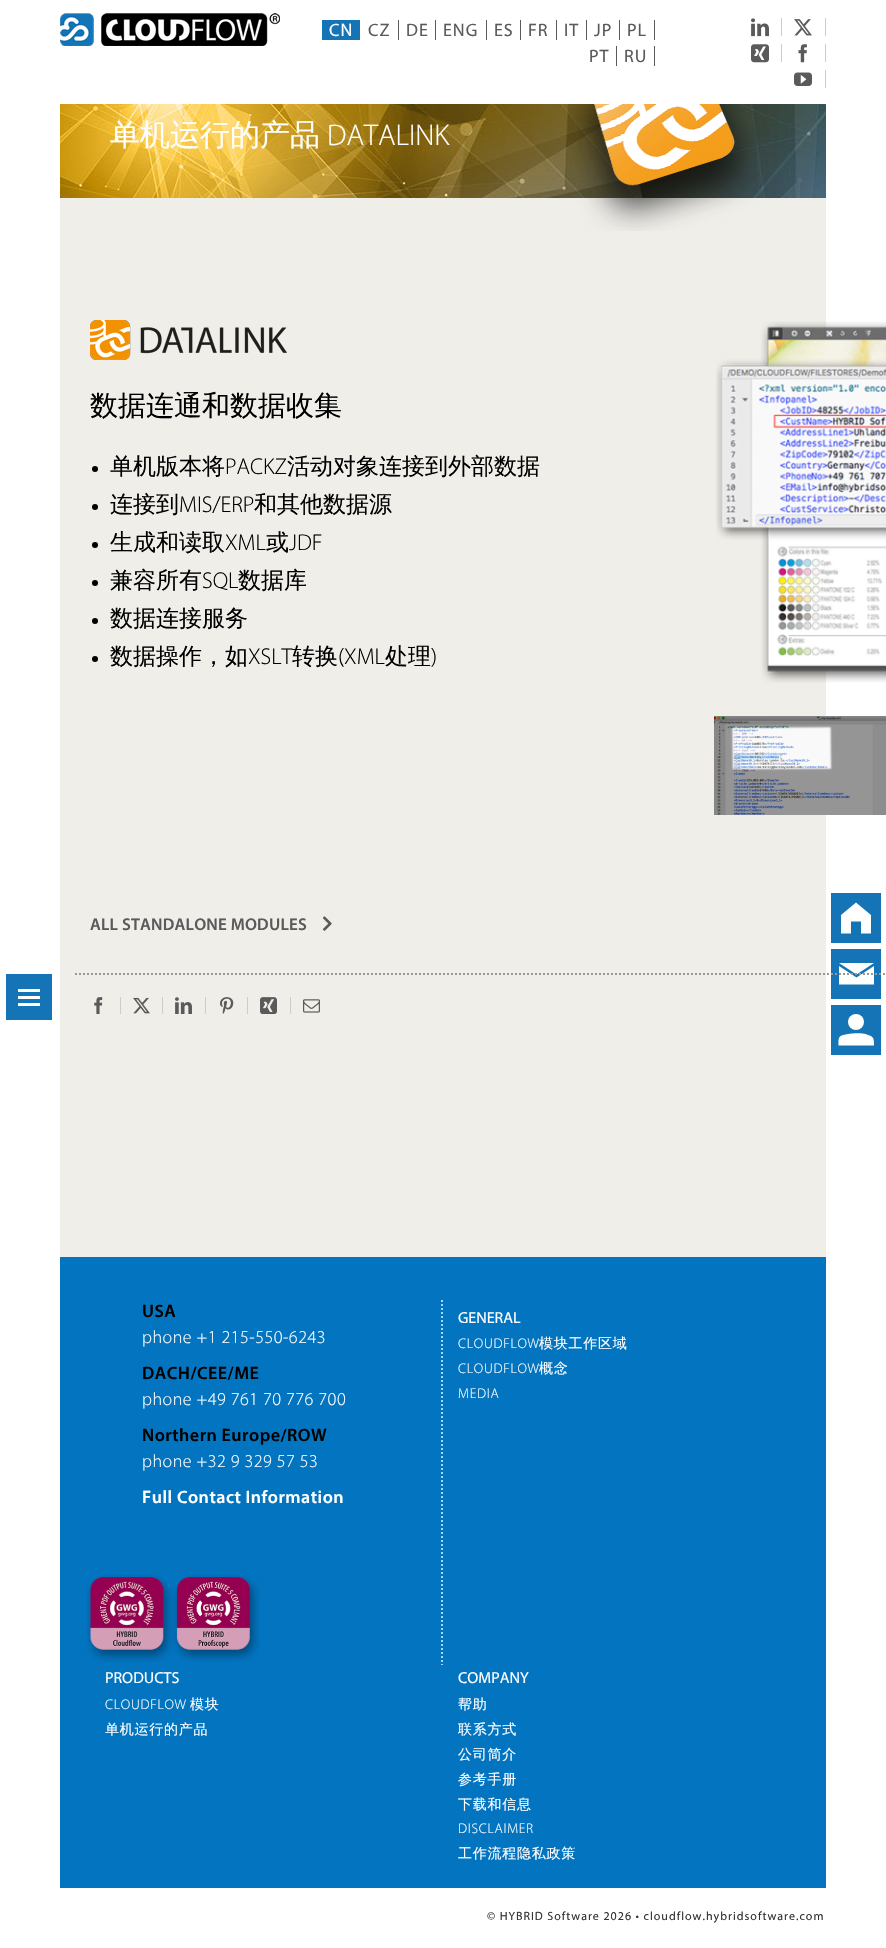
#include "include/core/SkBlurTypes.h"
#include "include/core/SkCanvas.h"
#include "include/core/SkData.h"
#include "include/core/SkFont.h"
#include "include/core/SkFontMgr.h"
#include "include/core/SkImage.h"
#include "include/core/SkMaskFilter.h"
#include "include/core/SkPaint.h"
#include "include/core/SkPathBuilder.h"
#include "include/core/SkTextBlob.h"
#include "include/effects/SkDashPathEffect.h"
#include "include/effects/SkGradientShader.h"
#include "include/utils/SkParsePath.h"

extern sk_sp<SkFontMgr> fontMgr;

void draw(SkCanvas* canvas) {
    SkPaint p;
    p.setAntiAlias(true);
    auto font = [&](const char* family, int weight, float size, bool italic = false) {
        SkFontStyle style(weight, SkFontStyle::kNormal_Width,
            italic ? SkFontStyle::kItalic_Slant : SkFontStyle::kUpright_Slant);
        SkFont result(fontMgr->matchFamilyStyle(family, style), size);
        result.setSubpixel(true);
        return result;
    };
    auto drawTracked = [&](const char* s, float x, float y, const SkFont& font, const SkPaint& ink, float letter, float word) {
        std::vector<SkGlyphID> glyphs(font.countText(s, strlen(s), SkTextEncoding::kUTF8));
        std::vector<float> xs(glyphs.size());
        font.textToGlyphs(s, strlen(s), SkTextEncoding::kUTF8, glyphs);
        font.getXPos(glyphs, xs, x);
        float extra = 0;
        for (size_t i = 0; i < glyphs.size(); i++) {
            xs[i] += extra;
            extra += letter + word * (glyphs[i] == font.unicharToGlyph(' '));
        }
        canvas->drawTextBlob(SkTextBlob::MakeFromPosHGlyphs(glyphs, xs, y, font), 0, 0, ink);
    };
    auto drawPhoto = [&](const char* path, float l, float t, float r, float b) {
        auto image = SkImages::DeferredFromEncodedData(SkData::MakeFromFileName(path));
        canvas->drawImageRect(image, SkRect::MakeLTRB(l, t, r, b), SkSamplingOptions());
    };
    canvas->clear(0xFFFFFFFF);
    p.setColor(0xFFEFEEE9);
    canvas->drawRect(SkRect::MakeLTRB(60, 198, 826, 1257), p);
    drawPhoto("media/1.png", 60, 13, 280, 46);
    p.setColor(0xFF1474B6);
    canvas->drawRect(SkRect::MakeLTRB(322, 20, 360, 40), p);
    auto font1 = font("Myriad", 400, 18);
    p.setColor(0xFFFFFFFF);
    drawTracked("CN", 329, 36, font1, p, 1, 0);
    p.setColor(0xFF5A5A5A);
    canvas->drawRect(SkRect::MakeLTRB(398, 20, 399, 40), p);
    drawTracked("CZ", 368, 36, font1, p, 1, 0);
    canvas->drawRect(SkRect::MakeLTRB(435, 20, 436, 40), p);
    drawTracked("DE", 406, 36, font1, p, 1, 0);
    canvas->drawRect(SkRect::MakeLTRB(486, 20, 487, 40), p);
    drawTracked("ENG", 443, 36, font1, p, 1, 0);
    canvas->drawRect(SkRect::MakeLTRB(520, 20, 521, 40), p);
    drawTracked("ES", 494, 36, font1, p, 1, 0);
    canvas->drawRect(SkRect::MakeLTRB(556, 20, 557, 40), p);
    drawTracked("FR", 528, 36, font1, p, 1, 0);
    canvas->drawRect(SkRect::MakeLTRB(586, 20, 587, 40), p);
    drawTracked("IT", 564, 36, font1, p, 1, 0);
    canvas->drawRect(SkRect::MakeLTRB(619, 20, 620, 40), p);
    drawTracked("JP", 594, 36, font1, p, 1, 0);
    canvas->drawRect(SkRect::MakeLTRB(654, 20, 655, 40), p);
    drawTracked("PL", 627, 36, font1, p, 1, 0);
    canvas->drawRect(SkRect::MakeLTRB(616, 46, 617, 66), p);
    drawTracked("PT", 589, 62, font1, p, 1, 0);
    canvas->drawRect(SkRect::MakeLTRB(654, 46, 655, 66), p);
    drawTracked("RU", 624, 62, font1, p, 1, 0);
    p.setColor(0xFFCCCCCC);
    canvas->drawRect(SkRect::MakeLTRB(781, 18, 782, 36), p);
    drawPhoto("media/2.png", 751, 18, 769, 37);
    canvas->drawRect(SkRect::MakeLTRB(825, 18, 826, 36), p);
    drawPhoto("media/3.png", 794, 19, 812, 36);
    canvas->drawRect(SkRect::MakeLTRB(781, 44, 782, 62), p);
    drawPhoto("media/4.png", 751, 44, 769, 63);
    canvas->drawRect(SkRect::MakeLTRB(825, 44, 826, 62), p);
    drawPhoto("media/5.png", 798, 44, 807, 63);
    canvas->drawRect(SkRect::MakeLTRB(825, 70, 826, 88), p);
    drawPhoto("media/6.png", 794, 72, 812, 86);
    drawPhoto("media/7.png", 60, 104, 826, 198);
    auto font2 = font("WenQuanYi Zen Hei", 500, 30);
    p.setColor(0xFFFFFFFF);
    canvas->drawString("单机运行的产品", 110, 145, font2, p);
    auto font3 = font("Myriad", 300, 30);
    canvas->drawString("DATALINK", 327, 145, font3, p);
    drawPhoto("media/8.png", 565, 104, 757, 231);
    drawPhoto("media/9.png", 90, 320, 287, 360);
    auto font4 = font("WenQuanYi Zen Hei", 500, 28);
    p.setColor(0xFF000000);
    canvas->drawString("数据连通和数据收集", 90, 415, font4, p);
    canvas->drawCircle(95, 469, 3, p);
    auto font5 = font("WenQuanYi Zen Hei", 500, 23);
    canvas->drawString("单机版本将", 110, 474, font5, p);
    auto font6 = font("Myriad", 300, 23);
    canvas->drawString("PACKZ", 225, 474, font6, p);
    canvas->drawString("活动对象连接到外部数据", 287, 474, font5, p);
    canvas->drawCircle(95, 507, 3, p);
    canvas->drawString("连接到", 110, 512, font5, p);
    canvas->drawString("MIS/ERP", 179, 512, font6, p);
    canvas->drawString("和其他数据源", 254, 512, font5, p);
    canvas->drawCircle(95, 545, 3, p);
    canvas->drawString("生成和读取", 110, 550, font5, p);
    canvas->drawString("XML", 225, 550, font6, p);
    canvas->drawString("或", 266, 550, font5, p);
    canvas->drawString("JDF", 289, 550, font6, p);
    canvas->drawCircle(95, 583, 3, p);
    canvas->drawString("兼容所有", 110, 588, font5, p);
    canvas->drawString("SQL", 202, 588, font6, p);
    canvas->drawString("数据库", 238, 588, font5, p);
    canvas->drawCircle(95, 621, 3, p);
    canvas->drawString("数据连接服务", 110, 626, font5, p);
    canvas->drawCircle(95, 659, 3, p);
    canvas->drawString("数据操作，如", 110, 664, font5, p);
    canvas->drawString("XSLT", 248, 664, font6, p);
    canvas->drawString("转换", 292, 664, font5, p);
    canvas->drawString("(XML", 338, 664, font6, p);
    canvas->drawString("处理", 385, 664, font5, p);
    canvas->drawString(")", 431, 664, font6, p);
    drawPhoto("media/10.png", 716, 321, 886, 683);
    drawPhoto("media/11.png", 714, 716, 886, 815);
    p.setColor(0xFF1474B6);
    canvas->drawRect(SkRect::MakeLTRB(831, 949, 881, 999), p);
    p.setColor(0xFFFFFFFF);
    canvas->drawPath(SkPathBuilder().moveTo(856.5f, 974.5f).lineTo(839, 963).lineTo(874, 963).close().moveTo(856.5f, 977.5f).lineTo(839, 966).lineTo(839, 984.5f).lineTo(874, 984.5f).lineTo(874, 966).close().detach(), p);
    p.setStyle(SkPaint::kStroke_Style);
    p.setStrokeWidth(2);
    p.setColor(0xFF999999);
    p.setPathEffect(SkDashPathEffect::Make({{2, 2}}, 0));
    canvas->drawPath(SkPathBuilder().moveTo(75, 974).lineTo(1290, 974).detach(), p);
    p.setPathEffect(nullptr);
    auto font7 = font("Myriad", 600, 17);
    p.setStyle(SkPaint::kFill_Style);
    p.setColor(0xFF5A5A5A);
    drawTracked("ALL STANDALONE MODULES", 90, 930, font7, p, 0.2f, 0);
    drawPhoto("media/12.png", 323, 916, 332, 931);
    p.setColor(0xFFCCCCCC);
    canvas->drawRect(SkRect::MakeLTRB(120, 997, 121, 1014), p);
    drawPhoto("media/13.png", 94, 997, 103, 1014);
    canvas->drawRect(SkRect::MakeLTRB(162, 997, 163, 1014), p);
    drawPhoto("media/14.png", 133, 997, 150, 1014);
    canvas->drawRect(SkRect::MakeLTRB(205, 997, 206, 1014), p);
    drawPhoto("media/15.png", 175, 997, 192, 1014);
    canvas->drawRect(SkRect::MakeLTRB(247, 997, 248, 1014), p);
    drawPhoto("media/16.png", 220, 997, 234, 1014);
    canvas->drawRect(SkRect::MakeLTRB(290, 997, 291, 1014), p);
    drawPhoto("media/17.png", 260, 997, 277, 1014);
    drawPhoto("media/18.png", 303, 999, 320, 1013);
    p.setColor(0xFF0274C0);
    canvas->drawRect(SkRect::MakeLTRB(60, 1257, 826, 1888), p);
    p.setStyle(SkPaint::kStroke_Style);
    p.setColor(0xFFA4D7F8);
    p.setPathEffect(SkDashPathEffect::Make({{2, 2}}, 0));
    canvas->drawPath(SkPathBuilder().moveTo(442, 1300).lineTo(442, 1665).detach(), p);
    p.setPathEffect(nullptr);
    auto font8 = font("Myriad", 600, 18);
    p.setStyle(SkPaint::kFill_Style);
    p.setColor(0xFF000000);
    drawTracked("USA", 142, 1317, font8, p, 0.5f, 0);
    auto font9 = font("Myriad", 300, 18);
    p.setColor(0xFFFFFFFF);
    drawTracked("phone +1 215-550-6243", 142, 1343, font9, p, 0.5f, 0);
    p.setColor(0xFF000000);
    drawTracked("DACH/CEE/ME", 142, 1379, font8, p, 0.5f, 0);
    p.setColor(0xFFFFFFFF);
    drawTracked("phone +49 761 70 776 700", 142, 1405, font9, p, 0.5f, 0);
    p.setColor(0xFF000000);
    drawTracked("Northern Europe/ROW", 142, 1441, font8, p, 0.5f, 0);
    p.setColor(0xFFFFFFFF);
    drawTracked("phone +32 9 329 57 53", 142, 1467, font9, p, 0.5f, 0);
    drawTracked("Full Contact Information", 142, 1503, font8, p, 0.5f, 0);
    drawPhoto("media/19.png", 86, 1575, 260, 1662);
    auto font10 = font("Myriad", 400, 16);
    canvas->drawString("GENERAL", 458, 1323, font10, p);
    auto font11 = font("Myriad", 300, 14);
    drawTracked("CLOUDFLOW", 458, 1348, font11, p, 0.75f, 0);
    auto font12 = font("WenQuanYi Zen Hei", 500, 14);
    drawTracked("模块工作区域", 539, 1348, font12, p, 0.75f, 0);
    drawTracked("CLOUDFLOW", 458, 1373, font11, p, 0.75f, 0);
    drawTracked("概念", 539, 1373, font12, p, 0.75f, 0);
    drawTracked("MEDIA", 458, 1398, font11, p, 0.75f, 0);
    canvas->drawString("PRODUCTS", 105, 1683, font10, p);
    drawTracked("CLOUDFLOW", 105, 1709, font11, p, 0.75f, 0);
    drawTracked("模块", 190, 1709, font12, p, 0.75f, 0);
    drawTracked("单机运行的产品", 105, 1734, font12, p, 0.75f, 0);
    canvas->drawString("COMPANY", 458, 1683, font10, p);
    {
        const struct { const char* s; float x, y; } items[] = {
            {"帮助", 458, 1709},
            {"联系方式", 458, 1734},
            {"公司简介", 458, 1759},
            {"参考手册", 458, 1784},
            {"下载和信息", 458, 1809},
        };
        for (auto [s, x, y] : items) {
            drawTracked(s, x, y, font12, p, 0.75f, 0);
        }
    }
    drawTracked("DISCLAIMER", 458, 1833, font11, p, 0.75f, 0);
    drawTracked("工作流程隐私政策", 458, 1858, font12, p, 0.75f, 0);
    {
        const struct { float l, t, r, b; SkColor color; } items[] = {
            {6, 974, 52, 1020, 0xFF1474B6},
            {18, 996, 40, 999, 0xFFFFFFFF},
            {18, 989, 40, 992, 0xFFFFFFFF},
            {18, 1003, 40, 1006, 0xFFFFFFFF},
            {831, 893, 881, 943, 0xFF1474B6},
        };
        for (auto [l, t, r, b, color] : items) {
            p.setColor(color);
            canvas->drawRect(SkRect::MakeLTRB(l, t, r, b), p);
        }
    }
    p.setColor(0xFFFFFFFF);
    canvas->drawPath(SkPathBuilder().moveTo(856, 902.5f).lineTo(871, 915).lineTo(871, 933.5f).lineTo(861, 933.5f).lineTo(861, 921.5f).lineTo(851, 921.5f).lineTo(851, 933.5f).lineTo(841, 933.5f).lineTo(841, 915).close().detach(), p);
    p.setColor(0xFF1474B6);
    canvas->drawRect(SkRect::MakeLTRB(831, 1005, 881, 1055), p);
    p.setColor(0xFFFFFFFF);
    canvas->drawPath(SkPathBuilder().moveTo(865.5f, 1034).cubicTo(861.5f, 1032.5f, 842.5f, 1033, 839.5f, 1037).cubicTo(838, 1039.5f, 838.5f, 1043, 838.5f, 1045.5f).lineTo(874, 1045.5f).cubicTo(874, 1036.5f, 873.5f, 1037, 865.5f, 1034).close().detach(), p);
    canvas->drawCircle(856, 1022, 8, p);
    auto font13 = font("Myriad", 400, 12);
    p.setColor(0xFF333333);
    drawTracked("© HYBRID Software 2026 • cloudflow.hybridsoftware.com", 487, 1920, font13, p, 1, 0);
}
